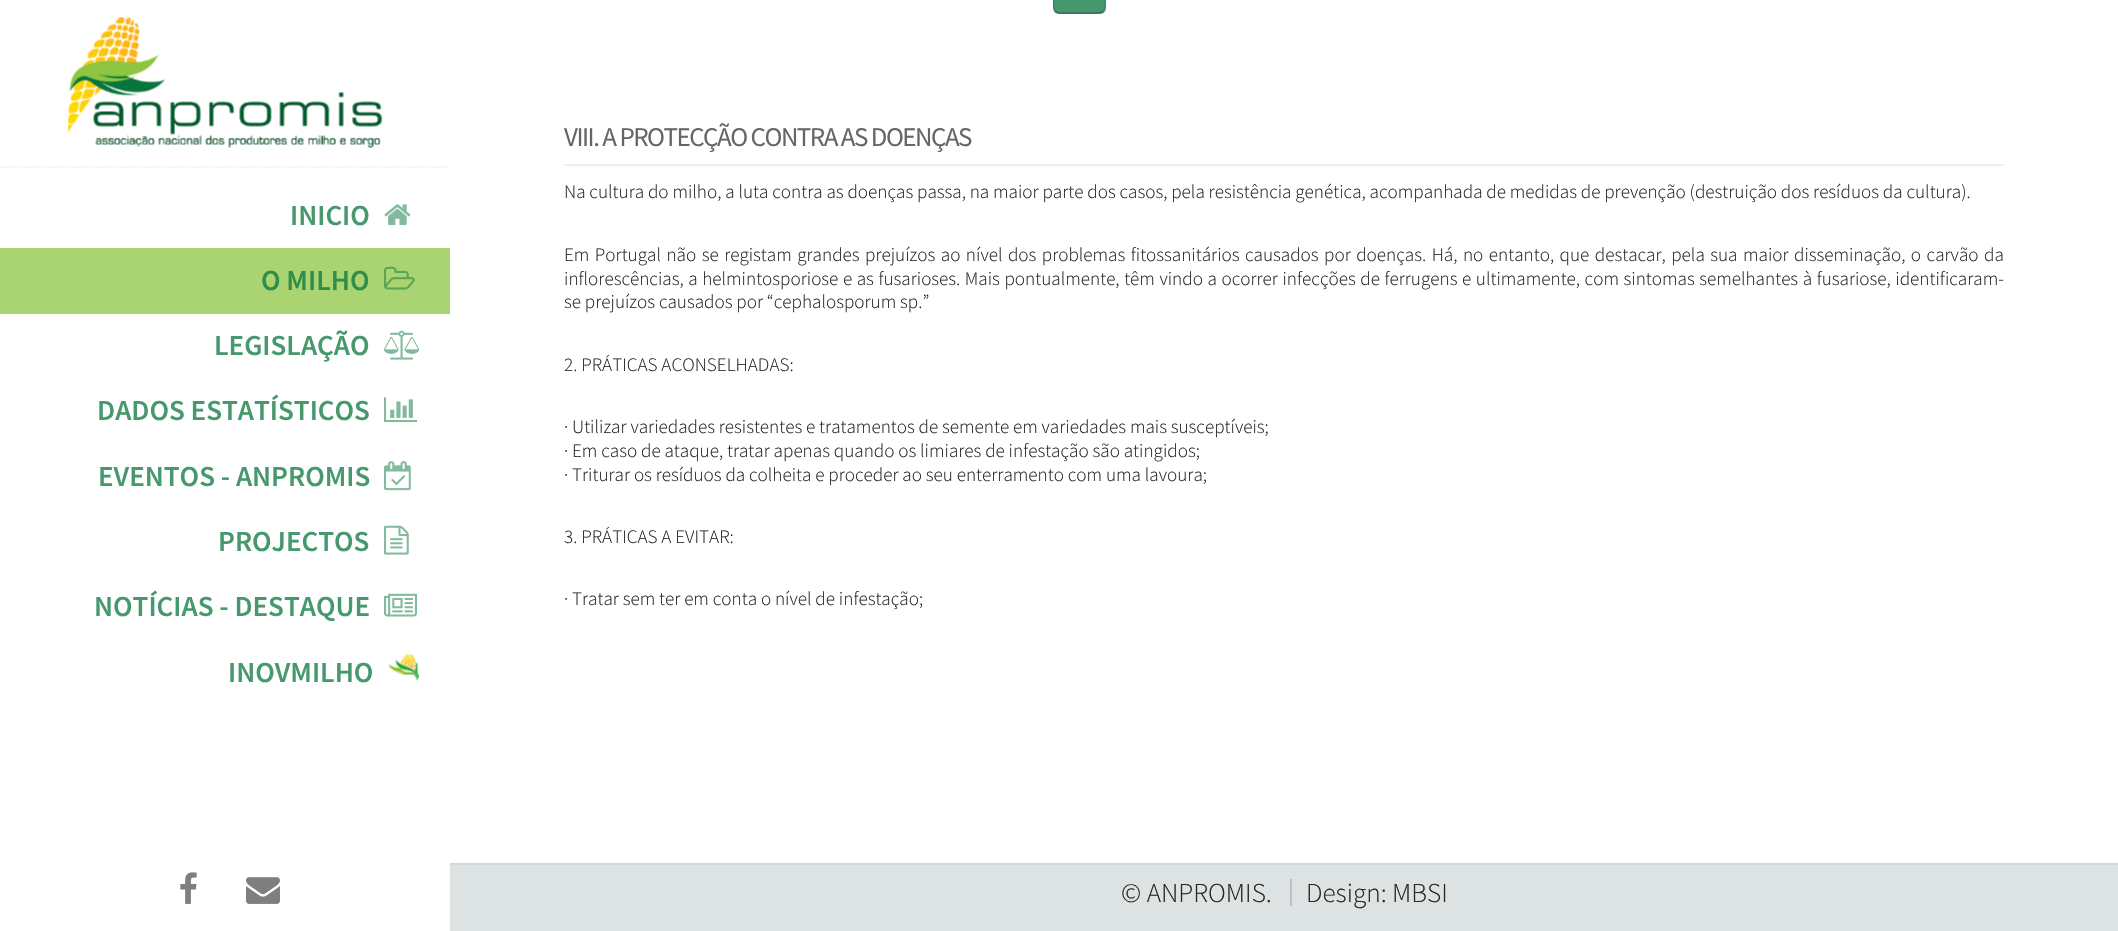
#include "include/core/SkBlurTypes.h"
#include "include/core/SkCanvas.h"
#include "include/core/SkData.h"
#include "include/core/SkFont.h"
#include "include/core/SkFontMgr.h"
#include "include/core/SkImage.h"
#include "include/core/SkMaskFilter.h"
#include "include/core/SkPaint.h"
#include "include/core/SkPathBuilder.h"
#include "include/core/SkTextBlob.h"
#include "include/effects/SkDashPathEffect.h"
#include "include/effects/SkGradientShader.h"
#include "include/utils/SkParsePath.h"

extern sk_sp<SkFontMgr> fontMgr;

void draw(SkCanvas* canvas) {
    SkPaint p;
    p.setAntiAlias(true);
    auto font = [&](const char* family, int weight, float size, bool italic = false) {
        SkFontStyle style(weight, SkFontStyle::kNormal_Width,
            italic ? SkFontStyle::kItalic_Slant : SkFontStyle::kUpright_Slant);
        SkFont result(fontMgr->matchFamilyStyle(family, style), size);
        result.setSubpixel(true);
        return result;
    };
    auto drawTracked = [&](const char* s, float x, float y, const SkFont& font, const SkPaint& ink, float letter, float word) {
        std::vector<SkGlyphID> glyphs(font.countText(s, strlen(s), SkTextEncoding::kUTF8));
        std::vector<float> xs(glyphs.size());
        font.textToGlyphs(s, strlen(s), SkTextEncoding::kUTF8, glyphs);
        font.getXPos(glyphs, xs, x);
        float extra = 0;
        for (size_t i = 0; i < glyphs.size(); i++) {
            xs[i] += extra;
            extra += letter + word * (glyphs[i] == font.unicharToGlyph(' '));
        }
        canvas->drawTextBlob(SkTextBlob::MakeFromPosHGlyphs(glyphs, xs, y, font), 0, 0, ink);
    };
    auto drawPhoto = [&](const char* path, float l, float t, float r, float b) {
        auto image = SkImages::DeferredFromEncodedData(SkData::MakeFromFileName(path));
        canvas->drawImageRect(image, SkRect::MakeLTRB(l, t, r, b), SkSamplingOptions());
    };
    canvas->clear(0xFFFFFFFF);
    drawPhoto("media/1.png", 68, 17, 383, 148);
    p.setStyle(SkPaint::kStroke_Style);
    p.setStrokeWidth(1.5f);
    p.setColor(0xFFE6F1EC);
    p.setPathEffect(SkDashPathEffect::Make({{1.5f, 1.5f}}, 0));
    canvas->drawPath(SkPathBuilder().moveTo(0, 167).lineTo(450, 167).detach(), p);
    p.setPathEffect(nullptr);
    auto font1 = font("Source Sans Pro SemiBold", 600, 29);
    p.setStyle(SkPaint::kFill_Style);
    p.setColor(0xFF46986D);
    canvas->drawString("INICIO", 290, 225, font1, p);
    drawPhoto("media/2.png", 384, 204, 411, 225);
    p.setColor(0xFFAAD471);
    canvas->drawRect(SkRect::MakeLTRB(0, 248, 450, 314), p);
    p.setColor(0xFF318D49);
    canvas->drawString("O MILHO", 261, 290, font1, p);
    drawPhoto("media/3.png", 384, 266, 415, 290);
    p.setColor(0xFF46986D);
    canvas->drawString("LEGISLAÇÃO", 214, 355, font1, p);
    drawPhoto("media/4.png", 384, 330, 419, 360);
    canvas->drawString("DADOS ESTATÍSTICOS", 97, 420, font1, p);
    drawPhoto("media/5.png", 384, 397, 417, 423);
    canvas->drawString("EVENTOS - ANPROMIS", 98, 486, font1, p);
    drawPhoto("media/6.png", 384, 461, 411, 491);
    canvas->drawString("PROJECTOS", 218, 551, font1, p);
    drawPhoto("media/7.png", 384, 525, 409, 555);
    canvas->drawString("NOTÍCIAS - DESTAQUE", 94, 616, font1, p);
    drawPhoto("media/8.png", 384, 593, 417, 617);
    canvas->drawString("INOVMILHO", 228, 682, font1, p);
    drawPhoto("media/9.png", 388, 654, 419, 681);
    drawPhoto("media/10.png", 180, 872, 197, 904);
    drawPhoto("media/11.png", 246, 877, 280, 904);
    p.setColor(0xBF08753C);
    canvas->drawRoundRect(SkRect::MakeLTRB(1053, -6, 1106, 14), 6, 6, p);
    p.setStyle(SkPaint::kStroke_Style);
    p.setColor(0x40000000);
    canvas->drawPath(SkPathBuilder().moveTo(1103, 11).cubicTo(1102, 12, 1101, 13, 1099.5f, 13).lineTo(1059, 13).cubicTo(1057.5f, 13, 1056.5f, 12, 1055.5f, 11).detach(), p);
    p.setColor(0x1A000000);
    canvas->drawPath(SkPathBuilder().moveTo(1055.5f, 11).cubicTo(1052.5f, 8.5f, 1054, 2.5f, 1054, -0.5f).lineTo(1054, -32.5f).cubicTo(1054, -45, 1053, -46, 1066, -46).lineTo(1093, -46).cubicTo(1105.5f, -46, 1105, -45, 1105, -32.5f).lineTo(1105, -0.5f).cubicTo(1105, 2.5f, 1106, 8.5f, 1103, 11).detach(), p);
    p.setStyle(SkPaint::kFill_Style);
    p.setColor(0xFFEEEEEE);
    canvas->drawRect(SkRect::MakeLTRB(564, 164, 2004, 166), p);
    auto font2 = font("Source Sans Pro", 400, 27);
    p.setColor(0xFF666666);
    drawTracked("VIII. A PROTECÇÃO CONTRA AS DOENÇAS", 564, 146, font2, p, -1.5f, 0);
    auto font3 = font("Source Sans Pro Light", 300, 19.12f);
    p.setColor(0xFF262626);
    canvas->drawString("Na cultura do milho, a luta contra as doenças passa, na maior parte dos casos, pela resistência genética, acompanhada de medidas de prevenção (destruição dos resíduos da cultura).", 564, 198, font3, p);
    drawTracked("Em Portugal não se registam grandes prejuízos ao nível dos problemas fitossanitários causados por doenças. Há, no entanto, que destacar, pela sua maior disseminação, o carvão da", 564, 261, font3, p, 0, 1.65f);
    drawTracked("inflorescências, a helmintosporiose e as fusarioses. Mais pontualmente, têm vindo a ocorrer infecções de ferrugens e ultimamente, com sintomas semelhantes à fusariose, identificaram-", 564, 285, font3, p, 0, 0.75f);
    {
        const struct { const char* s; float x, y; } items[] = {
            {"se prejuízos causados por “cephalosporum sp.”", 564, 308},
            {"2. PRÁTICAS ACONSELHADAS:", 564, 371},
            {"· Utilizar variedades resistentes e tratamentos de semente em variedades mais susceptíveis;", 564, 433},
            {"· Em caso de ataque, tratar apenas quando os limiares de infestação são atingidos;", 564, 457},
            {"· Triturar os resíduos da colheita e proceder ao seu enterramento com uma lavoura;", 564, 481},
            {"3. PRÁTICAS A EVITAR:", 564, 543},
            {"· Tratar sem ter em conta o nível de infestação;", 564, 605},
        };
        for (auto [s, x, y] : items) {
            canvas->drawString(s, x, y, font3, p);
        }
    }
    p.setColor(0xFFDCE3E2);
    canvas->drawRect(SkRect::MakeLTRB(450, 865, 2118, 931), p);
    p.setColor(0xFFD1D8D7);
    canvas->drawRect(SkRect::MakeLTRB(450, 863, 2118, 865), p);
    auto font4 = font("Source Sans Pro Light", 300, 27.25f);
    p.setColor(0xFF262626);
    canvas->drawString("© ANPROMIS.", 1121, 902, font4, p);
    p.setColor(0xFFBCC0C0);
    canvas->drawRect(SkRect::MakeLTRB(1290, 879, 1292, 906), p);
    p.setColor(0xFF262626);
    canvas->drawString("Design: MBSI", 1306, 902, font4, p);
}
